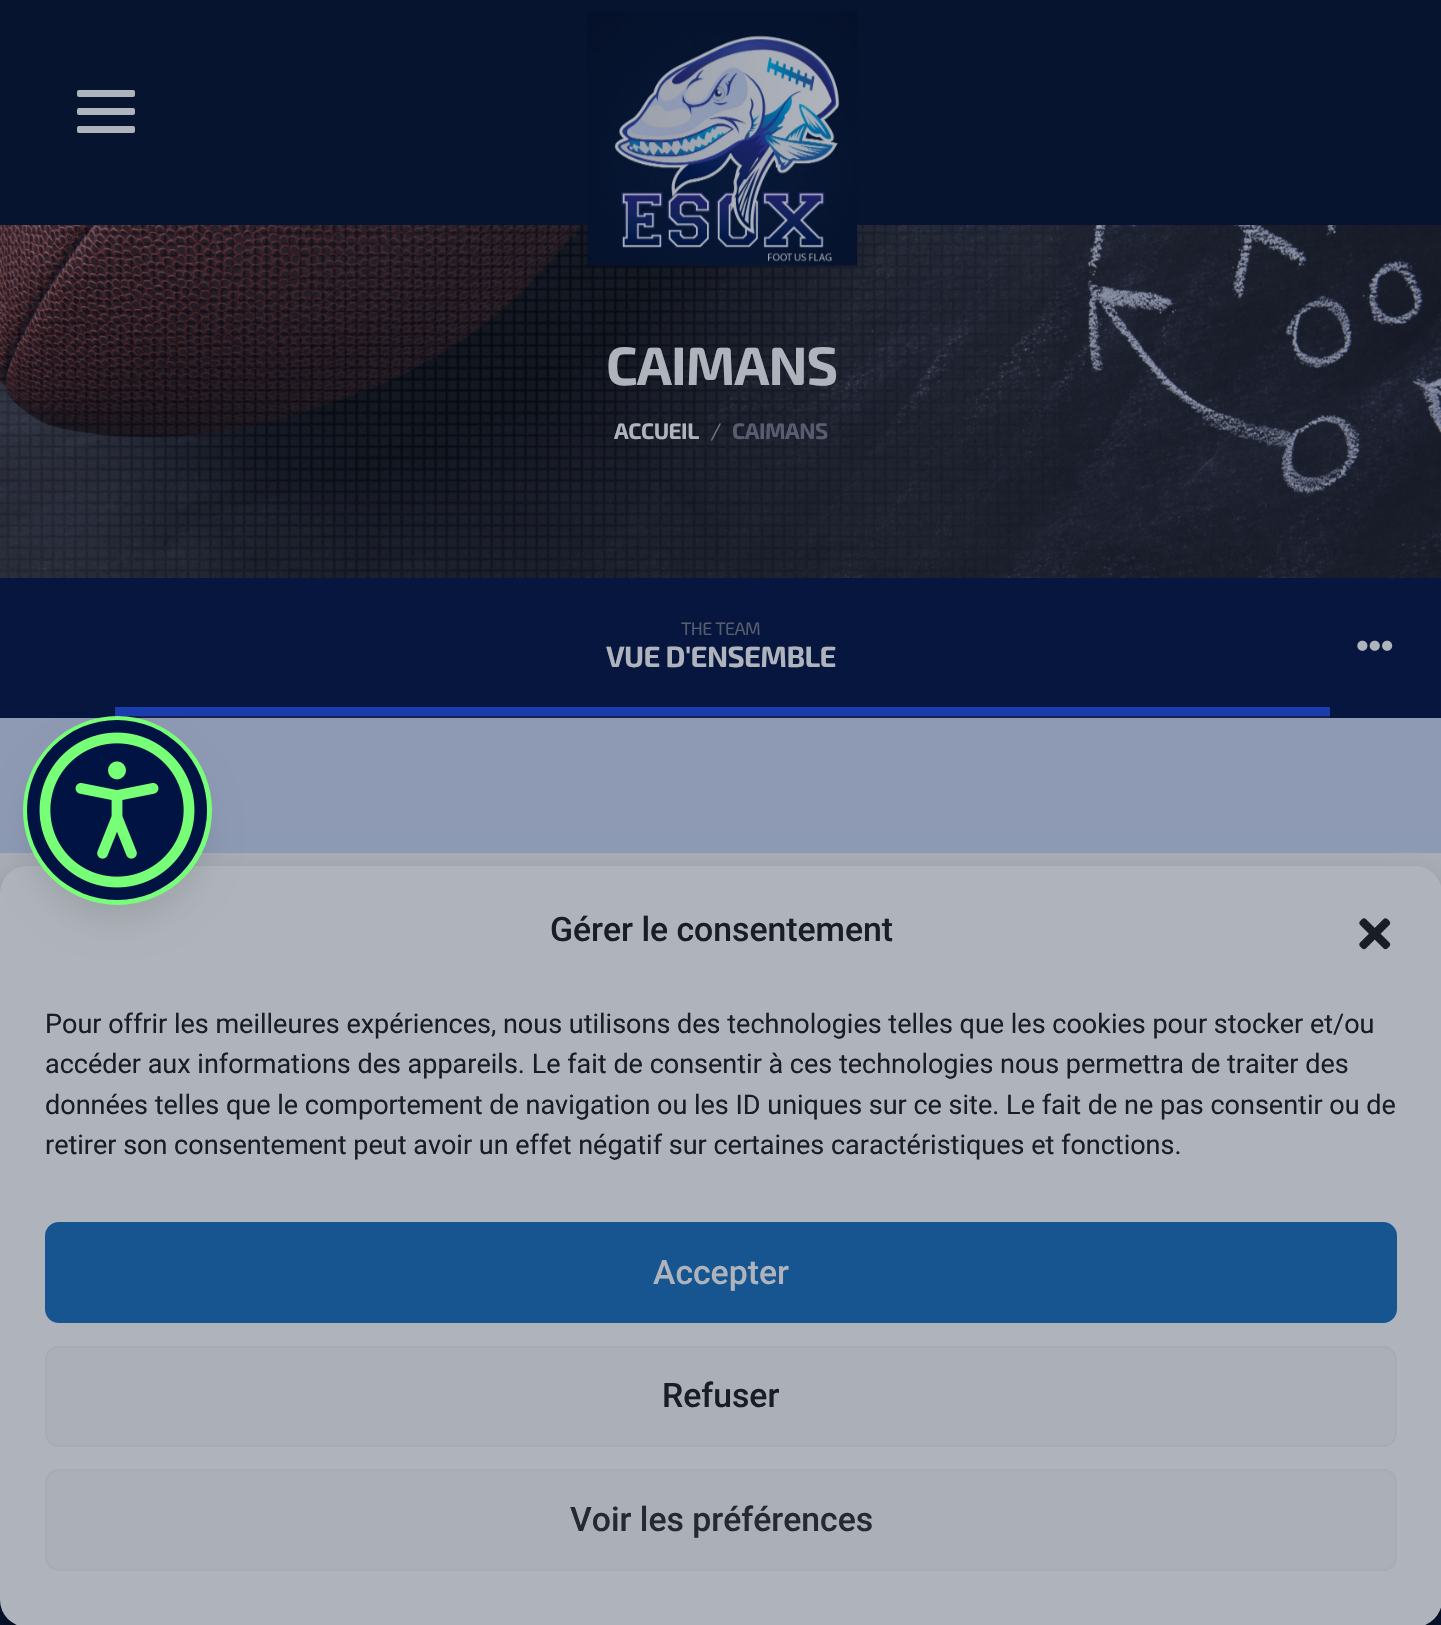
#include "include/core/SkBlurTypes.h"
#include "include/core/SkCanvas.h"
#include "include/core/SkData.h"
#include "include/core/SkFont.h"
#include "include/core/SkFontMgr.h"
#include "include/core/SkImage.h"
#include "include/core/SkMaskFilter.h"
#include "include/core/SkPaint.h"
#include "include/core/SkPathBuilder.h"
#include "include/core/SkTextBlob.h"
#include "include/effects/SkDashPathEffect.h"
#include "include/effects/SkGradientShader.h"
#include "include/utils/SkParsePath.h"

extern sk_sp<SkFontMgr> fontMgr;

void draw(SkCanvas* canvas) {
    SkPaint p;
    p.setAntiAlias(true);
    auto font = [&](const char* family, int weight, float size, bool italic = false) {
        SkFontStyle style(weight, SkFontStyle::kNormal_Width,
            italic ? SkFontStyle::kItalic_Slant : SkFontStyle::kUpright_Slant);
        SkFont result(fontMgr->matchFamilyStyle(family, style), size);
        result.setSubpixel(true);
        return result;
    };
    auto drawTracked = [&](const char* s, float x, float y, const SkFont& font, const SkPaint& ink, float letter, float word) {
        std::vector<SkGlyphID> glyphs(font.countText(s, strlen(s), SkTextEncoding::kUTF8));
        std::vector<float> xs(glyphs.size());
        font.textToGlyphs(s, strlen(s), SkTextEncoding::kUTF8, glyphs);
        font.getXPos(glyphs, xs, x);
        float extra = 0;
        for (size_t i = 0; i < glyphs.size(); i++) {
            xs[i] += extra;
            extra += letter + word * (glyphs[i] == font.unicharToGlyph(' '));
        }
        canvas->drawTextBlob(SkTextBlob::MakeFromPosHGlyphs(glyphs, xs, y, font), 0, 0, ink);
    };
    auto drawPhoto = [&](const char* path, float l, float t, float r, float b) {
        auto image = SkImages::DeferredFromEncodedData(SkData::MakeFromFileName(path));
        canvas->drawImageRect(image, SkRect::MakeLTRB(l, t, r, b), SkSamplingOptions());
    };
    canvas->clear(0xFF8E9AB4);
    p.setColor(0xFF06142F);
    canvas->drawRect(SkRect::MakeLTRB(0, 0, 1441, 225), p);
    p.setColor(0xFFAFB4BC);
    canvas->drawRoundRect(SkRect::MakeLTRB(77, 90, 135, 97), 2, 2, p);
    canvas->drawRoundRect(SkRect::MakeLTRB(77, 108, 135, 115), 2, 2, p);
    canvas->drawRoundRect(SkRect::MakeLTRB(77, 126, 135, 133), 2, 2, p);
    drawPhoto("media/2.png", 0, 225, 1441, 578);
    drawPhoto("media/3.png", 0, 225, 1059, 578);
    drawPhoto("media/1.png", 587, 11, 858, 266);
    auto font1 = font("Exo 2", 700, 54);
    drawTracked("CAIMANS", 606, 385, font1, p, -1, 0);
    auto font2 = font("Exo 2", 700, 22.5f);
    drawTracked("ACCUEIL", 614, 439, font2, p, -0.5f, 0);
    auto font3 = font("Exo 2", 400, 22.5f);
    p.setColor(0xFF6D7083);
    drawTracked("/", 710, 439, font3, p, -0.5f, 0);
    p.setColor(0xFF585C6E);
    drawTracked("CAIMANS", 732, 439, font2, p, -0.5f, 0);
    p.setColor(0xFF06163E);
    canvas->drawRect(SkRect::MakeLTRB(0, 578, 1441, 718), p);
    p.setColor(0xFF19204D);
    canvas->drawRect(SkRect::MakeLTRB(115, 716, 1330, 718), p);
    auto font4 = font("Exo 2", 400, 18);
    p.setColor(0xFF585C6E);
    drawTracked("THE TEAM", 681, 635, font4, p, -0.6f, 0);
    auto font5 = font("Exo 2", 700, 29.25f);
    p.setColor(0xFFAFB4BC);
    drawTracked("VUE D'ENSEMBLE", 606, 667, font5, p, -0.6f, 0);
    p.setColor(0xFF1A3DAE);
    canvas->drawRect(SkRect::MakeLTRB(115, 707, 1330, 716), p);
    drawPhoto("media/4.png", 1357, 640, 1393, 651);
    p.setColor(0xFFA8ACB5);
    canvas->drawRect(SkRect::MakeLTRB(0, 853, 1441, 893), p);
    p.setColor(0xFF06142F);
    canvas->drawRect(SkRect::MakeLTRB(0, 1600, 1441, 1625), p);
    p.setColor(0x3B02060F);
    p.setMaskFilter(SkMaskFilter::MakeBlur(kNormal_SkBlurStyle, 7));
    canvas->drawRoundRect(SkRect::MakeLTRB(0, 880, 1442, 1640), 27, 27, p);
    p.setMaskFilter(nullptr);
    p.setColor(0x3002060F);
    p.setMaskFilter(SkMaskFilter::MakeBlur(kNormal_SkBlurStyle, 22.5f));
    canvas->drawRoundRect(SkRect::MakeLTRB(0, 889, 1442, 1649), 27, 27, p);
    p.setMaskFilter(nullptr);
    p.setColor(0xFFAFB4BC);
    canvas->drawRoundRect(SkRect::MakeLTRB(0, 866, 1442, 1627), 27, 27, p);
    p.setColor(0x1A000000);
    p.setMaskFilter(SkMaskFilter::MakeBlur(kNormal_SkBlurStyle, 17));
    canvas->drawRoundRect(SkRect::MakeLTRB(29, 745, 205, 920), 87.5f, 87.5f, p);
    p.setMaskFilter(nullptr);
    p.setStyle(SkPaint::kStroke_Style);
    p.setStrokeWidth(5);
    p.setColor(0xFF78FF78);
    canvas->drawCircle(117.5f, 810.5f, 92, p);
    p.setStyle(SkPaint::kFill_Style);
    p.setColor(0xFF001342);
    canvas->drawCircle(117, 810, 90, p);
    drawPhoto("media/5.png", 39, 732, 195, 888);
    auto font6 = font("Roboto", 500, 33.75f);
    p.setColor(0xFF191E26);
    canvas->drawString("Gérer le consentement", 550, 941, font6, p);
    drawPhoto("media/6.png", 1359, 918, 1391, 950);
    auto font7 = font("Roboto", 400, 27);
    {
        const struct { const char* s; float x, y; } items[] = {
            {"Pour offrir les meilleures expériences, nous utilisons des technologies telles que les cookies pour stocker et/ou", 45, 1033},
            {"accéder aux informations des appareils. Le fait de consentir à ces technologies nous permettra de traiter des", 45, 1073},
            {"données telles que le comportement de navigation ou les ID uniques sur ce site. Le fait de ne pas consentir ou de", 45, 1114},
            {"retirer son consentement peut avoir un effet négatif sur certaines caractéristiques et fonctions.", 45, 1154},
        };
        for (auto [s, x, y] : items) {
            canvas->drawString(s, x, y, font7, p);
        }
    }
    p.setColor(0xFF165590);
    canvas->drawRoundRect(SkRect::MakeLTRB(46, 1223, 1396, 1322), 13, 13, p);
    p.setStyle(SkPaint::kStroke_Style);
    p.setStrokeWidth(2);
    canvas->drawRoundRect(SkRect::MakeLTRB(46, 1223, 1396, 1322), 13, 13, p);
    p.setStyle(SkPaint::kFill_Style);
    p.setColor(0xFFAFB4BC);
    canvas->drawString("Accepter", 653, 1284, font6, p);
    p.setColor(0xFFABB0B8);
    canvas->drawRoundRect(SkRect::MakeLTRB(46, 1347, 1396, 1446), 13, 13, p);
    p.setStyle(SkPaint::kStroke_Style);
    p.setColor(0xFFA6ABB4);
    canvas->drawRoundRect(SkRect::MakeLTRB(46, 1347, 1396, 1446), 13, 13, p);
    p.setStyle(SkPaint::kFill_Style);
    p.setColor(0xFF191E26);
    canvas->drawString("Refuser", 662, 1407, font6, p);
    p.setColor(0xFFABB0B8);
    canvas->drawRoundRect(SkRect::MakeLTRB(46, 1470, 1396, 1570), 13, 13, p);
    p.setStyle(SkPaint::kStroke_Style);
    p.setColor(0xFFA6ABB4);
    canvas->drawRoundRect(SkRect::MakeLTRB(46, 1470, 1396, 1570), 13, 13, p);
    p.setStyle(SkPaint::kFill_Style);
    p.setColor(0xFF252932);
    canvas->drawString("Voir les préférences", 570, 1531, font6, p);
}
